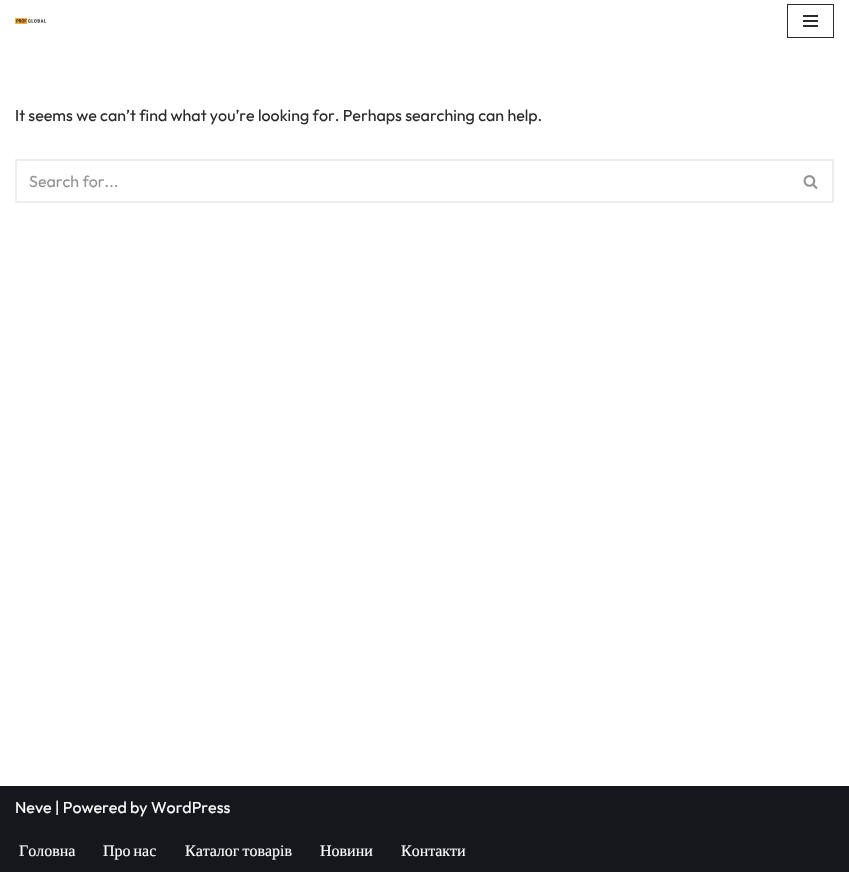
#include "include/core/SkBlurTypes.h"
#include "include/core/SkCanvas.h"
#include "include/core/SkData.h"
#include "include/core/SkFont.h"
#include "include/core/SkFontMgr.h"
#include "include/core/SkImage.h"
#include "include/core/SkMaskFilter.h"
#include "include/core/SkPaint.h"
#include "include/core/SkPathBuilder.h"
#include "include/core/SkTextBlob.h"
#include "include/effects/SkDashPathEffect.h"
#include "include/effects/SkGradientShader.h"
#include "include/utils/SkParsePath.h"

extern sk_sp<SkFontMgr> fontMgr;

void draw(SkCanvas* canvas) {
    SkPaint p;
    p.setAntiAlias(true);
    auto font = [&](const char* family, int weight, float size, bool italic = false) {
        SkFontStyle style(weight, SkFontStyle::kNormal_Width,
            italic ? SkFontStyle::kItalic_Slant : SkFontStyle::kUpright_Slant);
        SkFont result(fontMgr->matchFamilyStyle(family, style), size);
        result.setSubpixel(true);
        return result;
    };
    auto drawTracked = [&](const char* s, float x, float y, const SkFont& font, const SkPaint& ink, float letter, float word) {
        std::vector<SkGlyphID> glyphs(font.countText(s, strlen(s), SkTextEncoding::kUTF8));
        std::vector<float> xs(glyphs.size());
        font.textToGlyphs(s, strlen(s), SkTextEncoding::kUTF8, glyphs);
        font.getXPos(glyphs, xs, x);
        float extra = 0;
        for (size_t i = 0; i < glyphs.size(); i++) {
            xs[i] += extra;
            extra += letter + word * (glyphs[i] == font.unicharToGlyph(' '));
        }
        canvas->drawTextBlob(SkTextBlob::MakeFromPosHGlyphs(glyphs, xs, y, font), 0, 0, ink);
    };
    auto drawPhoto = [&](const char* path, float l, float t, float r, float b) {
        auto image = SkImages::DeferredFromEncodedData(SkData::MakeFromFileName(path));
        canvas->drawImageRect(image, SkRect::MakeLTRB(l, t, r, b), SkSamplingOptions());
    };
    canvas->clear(0xFFFFFFFF);
    drawPhoto("media/1.png", 15, 18, 47, 24);
    p.setStyle(SkPaint::kStroke_Style);
    p.setStrokeWidth(1);
    p.setColor(0xFF2B2B2B);
    canvas->drawRect(SkRect::MakeLTRB(787.5f, 4.5f, 833.5f, 37.5f), p);
    p.setStyle(SkPaint::kFill_Style);
    {
        const struct { float l, t, r, b; SkColor color; } items[] = {
            {803, 15, 818, 17, 0xFF2B2B2B},
            {803, 20, 818, 22, 0xFF2B2B2B},
            {803, 25, 818, 27, 0xFF2B2B2B},
        };
        for (auto [l, t, r, b, color] : items) {
            p.setColor(color);
            canvas->drawRect(SkRect::MakeLTRB(l, t, r, b), p);
        }
    }
    auto font1 = font("Outfit", 400, 16);
    canvas->drawString("It seems we can’t find what you’re looking for. Perhaps searching can help.", 15, 121, font1, p);
    {
        const struct { float l, t, r, b; SkColor color; } items[] = {
            {15, 159, 834, 161, 0xFFEDEDED},
            {15, 201, 789, 203, 0xFFEDEDED},
            {15, 159, 17, 203, 0xFFEDEDED},
        };
        for (auto [l, t, r, b, color] : items) {
            p.setColor(color);
            canvas->drawRect(SkRect::MakeLTRB(l, t, r, b), p);
        }
    }
    p.setColor(0xFF959595);
    canvas->drawString("Search for...", 29, 187, font1, p);
    p.setColor(0xFFEDEDED);
    canvas->drawRect(SkRect::MakeLTRB(832, 159, 834, 203), p);
    canvas->drawRect(SkRect::MakeLTRB(789, 201, 834, 203), p);
    drawPhoto("media/2.png", 803, 175, 818, 189);
    p.setColor(0xFF14171C);
    canvas->drawRect(SkRect::MakeLTRB(0, 786, 849, 872), p);
    p.setColor(0xFFFFFFFF);
    canvas->drawString("Neve | Powered by WordPress", 15, 813, font1, p);
    auto font2 = font("Liberation Serif", 400, 16);
    canvas->drawString("Головна", 19, 856, font2, p);
    drawTracked("Про нас", 103, 856, font2, p, 0, -1);
    drawTracked("Каталог товарів", 185, 856, font2, p, 0, -1);
    canvas->drawString("Новини", 320, 856, font2, p);
    canvas->drawString("Контакти", 401, 856, font2, p);
}
